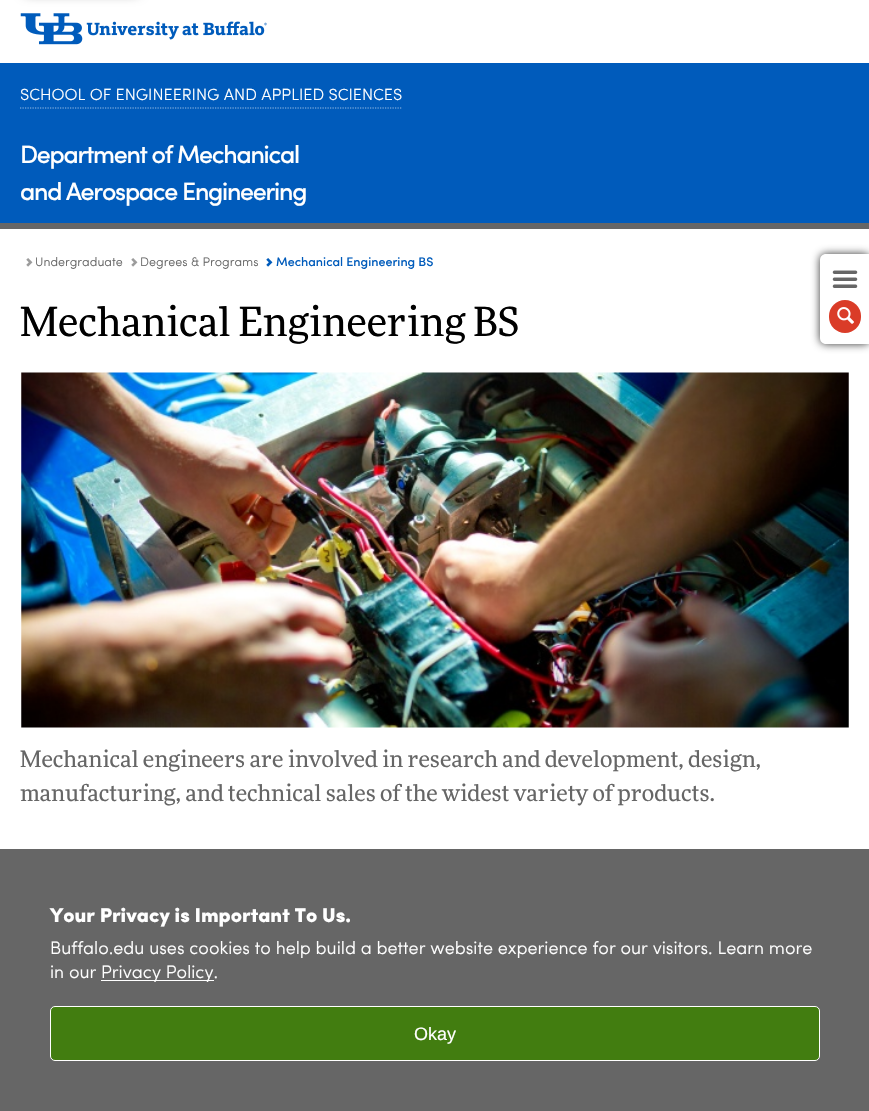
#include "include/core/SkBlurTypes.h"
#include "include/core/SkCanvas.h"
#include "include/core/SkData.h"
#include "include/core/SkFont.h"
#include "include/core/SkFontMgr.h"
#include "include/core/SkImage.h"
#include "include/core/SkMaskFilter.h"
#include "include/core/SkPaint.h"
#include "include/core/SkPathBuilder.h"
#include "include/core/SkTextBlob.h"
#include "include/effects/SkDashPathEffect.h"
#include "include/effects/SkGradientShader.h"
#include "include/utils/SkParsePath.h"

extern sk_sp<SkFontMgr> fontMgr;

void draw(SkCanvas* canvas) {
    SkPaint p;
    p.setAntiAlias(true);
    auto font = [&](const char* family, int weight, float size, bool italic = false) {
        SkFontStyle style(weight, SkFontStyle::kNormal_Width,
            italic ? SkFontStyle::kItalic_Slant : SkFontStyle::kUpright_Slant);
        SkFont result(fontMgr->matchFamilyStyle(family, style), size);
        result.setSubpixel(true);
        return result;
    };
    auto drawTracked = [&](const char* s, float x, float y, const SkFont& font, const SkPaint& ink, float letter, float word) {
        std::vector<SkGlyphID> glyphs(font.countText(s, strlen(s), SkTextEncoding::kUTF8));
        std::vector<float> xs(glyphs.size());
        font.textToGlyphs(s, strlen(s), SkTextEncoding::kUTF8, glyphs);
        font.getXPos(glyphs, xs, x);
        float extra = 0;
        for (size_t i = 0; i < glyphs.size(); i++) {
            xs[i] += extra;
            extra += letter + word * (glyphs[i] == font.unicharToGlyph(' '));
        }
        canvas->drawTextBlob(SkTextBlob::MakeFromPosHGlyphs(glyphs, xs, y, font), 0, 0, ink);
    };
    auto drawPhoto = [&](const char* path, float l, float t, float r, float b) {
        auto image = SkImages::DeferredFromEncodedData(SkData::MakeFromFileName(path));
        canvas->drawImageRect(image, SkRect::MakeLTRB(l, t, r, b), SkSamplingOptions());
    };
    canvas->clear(0xFFFFFFFF);
    p.setColor(0x80000000);
    p.setMaskFilter(SkMaskFilter::MakeBlur(kNormal_SkBlurStyle, 6));
    canvas->drawRect(SkRect::MakeLTRB(25, -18, 138, -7), p);
    p.setMaskFilter(nullptr);
    drawPhoto("media/1.png", 20, 13, 267, 45);
    p.setColor(0xFF005BBB);
    canvas->drawRect(SkRect::MakeLTRB(0, 63, 869, 223), p);
    p.setStyle(SkPaint::kStroke_Style);
    p.setStrokeWidth(1.2f);
    p.setColor(0xFF99BDE4);
    p.setPathEffect(SkDashPathEffect::Make({{1.25f, 1.25f}}, 0));
    canvas->drawPath(SkPathBuilder().moveTo(20, 108).lineTo(402.5f, 108).detach(), p);
    p.setPathEffect(nullptr);
    auto font1 = font("Sofia", 400, 16.25f);
    p.setStyle(SkPaint::kFill_Style);
    p.setColor(0xFFFFFFFF);
    canvas->drawString("SCHOOL OF ENGINEERING AND APPLIED SCIENCES", 20, 100, font1, p);
    auto font2 = font("Sofia", 500, 25);
    drawTracked("Department of Mechanical", 20, 163, font2, p, -1.25f, 0);
    drawTracked("and Aerospace Engineering", 20, 200, font2, p, -1.25f, 0);
    p.setColor(0xFF666666);
    canvas->drawRect(SkRect::MakeLTRB(0, 223, 869, 229), p);
    p.setColor(0xFF333333);
    p.setMaskFilter(SkMaskFilter::MakeBlur(kNormal_SkBlurStyle, 4.5f));
    canvas->drawRoundRect(SkRect::MakeLTRB(820, 254, 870, 344), 6, 6, p);
    p.setMaskFilter(nullptr);
    p.setColor(0xFFFFFFFF);
    canvas->drawPath(SkPathBuilder().moveTo(826, 254).lineTo(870, 254).lineTo(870, 344).lineTo(826, 344).cubicTo(822.5f, 344, 820, 341.5f, 820, 338).lineTo(820, 260).cubicTo(820, 256.5f, 822.5f, 254, 826, 254).close().detach(), p);
    drawPhoto("media/2.png", 832, 270, 858, 288);
    p.setColor(0xFFDA3C28);
    canvas->drawRoundRect(SkRect::MakeLTRB(829, 300, 861, 333), 16, 16, p);
    drawPhoto("media/3.png", 837, 307, 854, 324);
    drawPhoto("media/4.png", 26, 258, 33, 267);
    auto font3 = font("Sofia", 400, 12.5f);
    p.setColor(0xFF666666);
    canvas->drawString("Undergraduate", 35, 266, font3, p);
    drawPhoto("media/4.png", 131, 258, 138, 267);
    canvas->drawString("Degrees & Programs", 140, 266, font3, p);
    drawPhoto("media/5.png", 266, 258, 273, 267);
    auto font4 = font("Sofia", 500, 12.5f);
    p.setColor(0xFF005BBB);
    canvas->drawString("Mechanical Engineering BS", 276, 266, font4, p);
    auto font5 = font("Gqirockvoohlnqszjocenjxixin", 400, 40);
    p.setColor(0xFF000000);
    canvas->drawString("Mechanical Engineering BS", 20, 336, font5, p);
    drawPhoto("media/6.png", 21, 372, 849, 728);
    auto font6 = font("Gqirockvoohlnqszjocenjxixin", 400, 22.5f);
    p.setColor(0xFF666666);
    canvas->drawString("Mechanical engineers are involved in research and development, design,", 20, 767, font6, p);
    canvas->drawString("manufacturing, and technical sales of the widest variety of products.", 20, 801, font6, p);
    canvas->drawRect(SkRect::MakeLTRB(0, 849, 869, 1111), p);
    auto font7 = font("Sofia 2", 400, 20);
    p.setColor(0xFFFFFFFF);
    canvas->drawString("Your Privacy is Important To Us.", 50, 922, font7, p);
    auto font8 = font("Sofia", 400, 18);
    canvas->drawString("Buffalo.edu uses cookies to help build a better website experience for our visitors. Learn more", 50, 954, font8, p);
    canvas->drawString("in our", 50, 978, font8, p);
    canvas->drawRect(SkRect::MakeLTRB(101, 980, 214, 981), p);
    canvas->drawString("Privacy Policy.", 101, 978, font8, p);
    p.setColor(0xFF427D10);
    canvas->drawRoundRect(SkRect::MakeLTRB(50.5f, 1006.5f, 819.5f, 1060.5f), 4.5f, 4.5f, p);
    p.setStyle(SkPaint::kStroke_Style);
    p.setStrokeWidth(1);
    p.setColor(0xFFFFFFFF);
    canvas->drawRoundRect(SkRect::MakeLTRB(50.5f, 1006.5f, 819.5f, 1060.5f), 4.5f, 4.5f, p);
    auto font9 = font("Liberation Sans", 400, 18);
    p.setStyle(SkPaint::kFill_Style);
    canvas->drawString("Okay", 414, 1040, font9, p);
}
